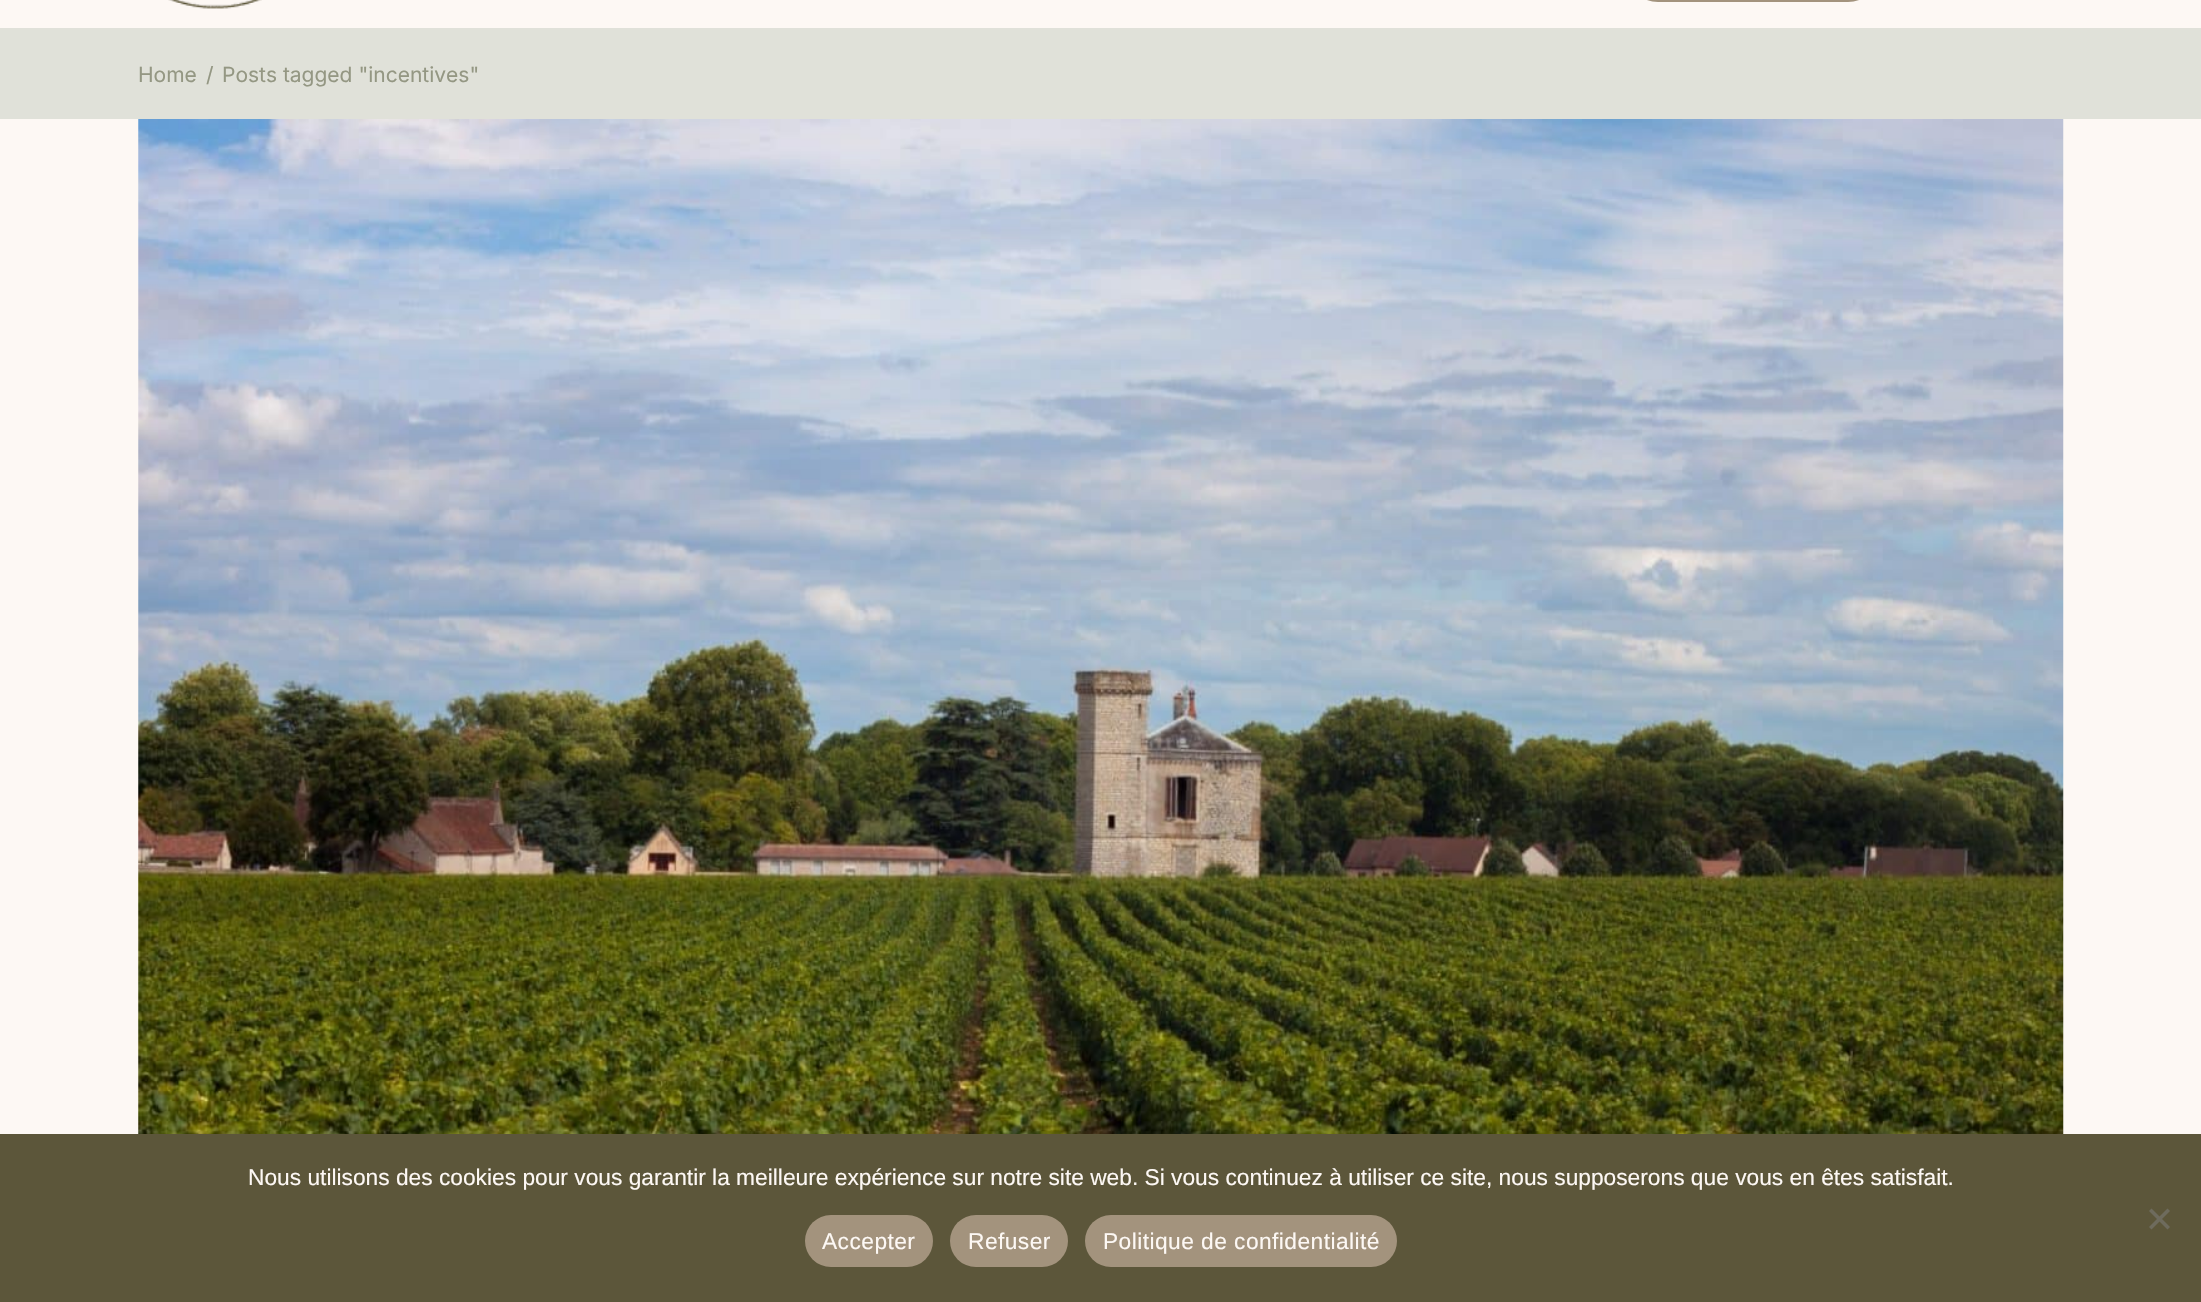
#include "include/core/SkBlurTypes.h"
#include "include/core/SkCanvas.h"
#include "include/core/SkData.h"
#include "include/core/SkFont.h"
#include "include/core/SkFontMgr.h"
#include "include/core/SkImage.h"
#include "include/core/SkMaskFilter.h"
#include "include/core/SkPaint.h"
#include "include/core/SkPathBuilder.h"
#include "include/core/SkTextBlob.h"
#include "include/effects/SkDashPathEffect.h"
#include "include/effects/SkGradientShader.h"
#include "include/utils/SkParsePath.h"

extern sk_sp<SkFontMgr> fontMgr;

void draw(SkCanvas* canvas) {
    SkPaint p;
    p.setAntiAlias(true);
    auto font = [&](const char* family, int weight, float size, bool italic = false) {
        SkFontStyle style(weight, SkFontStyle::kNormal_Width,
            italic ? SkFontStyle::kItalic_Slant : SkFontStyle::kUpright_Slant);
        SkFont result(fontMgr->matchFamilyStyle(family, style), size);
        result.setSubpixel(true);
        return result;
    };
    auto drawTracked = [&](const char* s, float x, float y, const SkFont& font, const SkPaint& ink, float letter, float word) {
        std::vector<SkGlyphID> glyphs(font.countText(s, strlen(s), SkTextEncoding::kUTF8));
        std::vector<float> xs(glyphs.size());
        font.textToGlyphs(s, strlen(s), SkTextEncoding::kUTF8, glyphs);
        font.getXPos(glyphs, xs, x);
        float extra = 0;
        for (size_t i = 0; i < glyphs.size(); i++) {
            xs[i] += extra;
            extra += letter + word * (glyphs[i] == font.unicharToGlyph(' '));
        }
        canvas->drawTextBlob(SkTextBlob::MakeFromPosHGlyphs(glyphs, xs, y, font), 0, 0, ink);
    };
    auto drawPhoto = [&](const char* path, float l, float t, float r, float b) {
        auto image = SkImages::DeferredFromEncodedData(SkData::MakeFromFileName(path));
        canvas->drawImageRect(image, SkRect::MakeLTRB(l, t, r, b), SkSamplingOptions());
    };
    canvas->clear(0xFFFDF8F4);
    p.setColor(0xFFA3937D);
    canvas->drawRoundRect(SkRect::MakeLTRB(1626, -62, 1880, 2), 61.5f, 61.5f, p);
    drawPhoto("media/1.png", 168, 0, 262, 9);
    p.setColor(0xFFE0E1D9);
    canvas->drawRect(SkRect::MakeLTRB(0, 28, 2201, 119), p);
    auto font1 = font("Inter", 400, 21);
    p.setColor(0xFF949783);
    {
        const struct { const char* s; float x, y; } items[] = {
            {"Home", 138, 82},
            {"/", 206, 82},
            {"Posts tagged \"incentives\"", 222, 82},
        };
        for (auto [s, x, y] : items) {
            canvas->drawString(s, x, y, font1, p);
        }
    }
    drawPhoto("media/2.png", 138, 119, 2064, 1134);
    p.setColor(0xFF5C563A);
    canvas->drawRect(SkRect::MakeLTRB(0, 1134, 2201, 1302), p);
    auto font2 = font("Liberation Sans", 400, 22.75f);
    p.setColor(0xFFFDF8F4);
    canvas->drawString("Nous utilisons des cookies pour vous garantir la meilleure expérience sur notre site web. Si vous continuez à utiliser ce site, nous supposerons que vous en êtes satisfait.", 248, 1185, font2, p);
    p.setColor(0xFF6E6B5D);
    canvas->drawPath(SkPathBuilder().moveTo(2167.5f, 1208.5f).lineTo(2170, 1211).lineTo(2151.5f, 1229.5f).lineTo(2149, 1227).close().detach(), p);
    canvas->drawPath(SkPathBuilder().moveTo(2149, 1211).lineTo(2151.5f, 1208.5f).lineTo(2170, 1227).lineTo(2167.5f, 1229.5f).close().detach(), p);
    p.setColor(0xFFA3937D);
    canvas->drawRoundRect(SkRect::MakeLTRB(805, 1215, 933, 1267), 26, 26, p);
    p.setColor(0xFFFDF8F4);
    drawTracked("Accepter", 822, 1249, font2, p, 0.45f, 0);
    p.setColor(0xFFA3937D);
    canvas->drawRoundRect(SkRect::MakeLTRB(950, 1215, 1068, 1267), 26, 26, p);
    p.setColor(0xFFFDF8F4);
    drawTracked("Refuser", 968, 1249, font2, p, 0.45f, 0);
    p.setColor(0xFFA3937D);
    canvas->drawRoundRect(SkRect::MakeLTRB(1085, 1215, 1397, 1267), 26, 26, p);
    p.setColor(0xFFFDF8F4);
    drawTracked("Politique de confidentialité", 1103, 1249, font2, p, 0.45f, 0);
}
